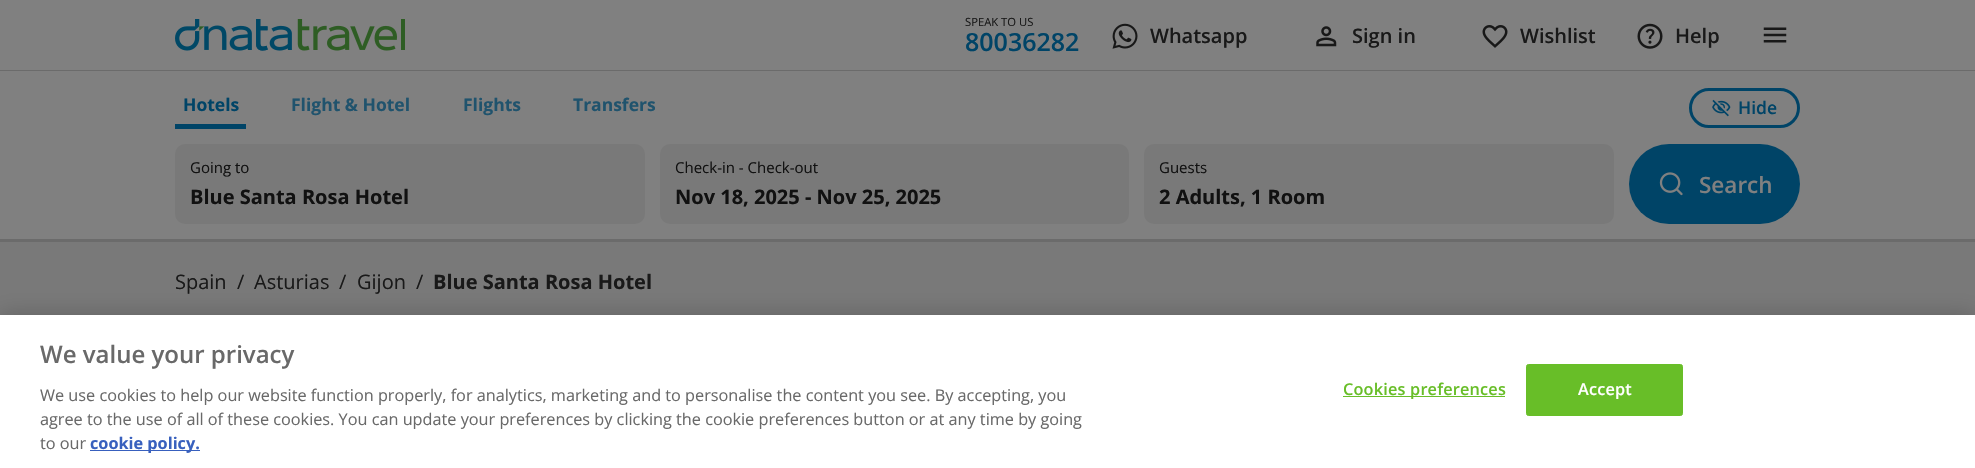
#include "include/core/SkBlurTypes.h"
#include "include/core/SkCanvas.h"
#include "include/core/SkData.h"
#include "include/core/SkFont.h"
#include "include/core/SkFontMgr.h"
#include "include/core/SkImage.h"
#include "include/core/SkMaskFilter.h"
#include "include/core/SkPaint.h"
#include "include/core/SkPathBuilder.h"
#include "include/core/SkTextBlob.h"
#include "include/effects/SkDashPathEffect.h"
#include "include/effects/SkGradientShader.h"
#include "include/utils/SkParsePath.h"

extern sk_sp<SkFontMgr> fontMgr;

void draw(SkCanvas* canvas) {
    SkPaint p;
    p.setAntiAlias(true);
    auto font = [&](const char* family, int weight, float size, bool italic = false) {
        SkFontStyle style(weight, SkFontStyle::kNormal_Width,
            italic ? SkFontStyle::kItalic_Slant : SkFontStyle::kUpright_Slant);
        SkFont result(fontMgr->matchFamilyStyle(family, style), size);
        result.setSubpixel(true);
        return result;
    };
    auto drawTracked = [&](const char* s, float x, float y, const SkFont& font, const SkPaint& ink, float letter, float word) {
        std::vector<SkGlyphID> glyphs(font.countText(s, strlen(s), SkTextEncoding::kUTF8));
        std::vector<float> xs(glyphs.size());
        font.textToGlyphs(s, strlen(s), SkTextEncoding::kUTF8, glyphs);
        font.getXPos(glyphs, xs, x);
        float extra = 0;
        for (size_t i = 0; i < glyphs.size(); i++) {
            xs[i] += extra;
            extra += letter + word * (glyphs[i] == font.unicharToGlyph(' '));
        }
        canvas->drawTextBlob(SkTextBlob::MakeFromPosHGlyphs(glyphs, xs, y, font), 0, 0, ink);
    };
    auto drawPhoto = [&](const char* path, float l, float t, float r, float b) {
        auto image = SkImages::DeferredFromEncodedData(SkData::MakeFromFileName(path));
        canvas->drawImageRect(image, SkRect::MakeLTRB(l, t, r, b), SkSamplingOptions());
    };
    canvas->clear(0xFF797979);
    p.setColor(0xFF808080);
    canvas->drawRect(SkRect::MakeLTRB(0, 0, 1975, 70), p);
    drawPhoto("media/1.png", 175, 19, 405, 51);
    auto font1 = font("Open Sans", 400, 11.25f);
    p.setColor(0xFF191919);
    canvas->drawString("SPEAK TO US", 965, 26, font1, p);
    auto font2 = font("Open Sans", 600, 25);
    p.setColor(0xFF004467);
    canvas->drawString("80036282", 965, 51, font2, p);
    drawPhoto("media/2.png", 1112, 23, 1138, 49);
    auto font3 = font("Open Sans", 600, 20);
    p.setColor(0xFF191919);
    canvas->drawString("Whatsapp", 1150, 43, font3, p);
    drawPhoto("media/3.png", 1316, 26, 1337, 47);
    canvas->drawString("Sign in", 1352, 43, font3, p);
    drawPhoto("media/4.png", 1482, 25, 1508, 48);
    canvas->drawString("Wishlist", 1520, 43, font3, p);
    drawPhoto("media/5.png", 1637, 23, 1663, 49);
    canvas->drawString("Help", 1675, 43, font3, p);
    drawPhoto("media/6.png", 1763, 27, 1787, 43);
    {
        const struct { float l, t, r, b; SkColor color; } items[] = {
            {0, 70, 1975, 71, 0xFF6B6B6B},
            {0, 71, 1975, 239, 0xFF808080},
            {0, 239, 1975, 242, 0xFF6B6B6B},
        };
        for (auto [l, t, r, b, color] : items) {
            p.setColor(color);
            canvas->drawRect(SkRect::MakeLTRB(l, t, r, b), p);
        }
    }
    auto font4 = font("Open Sans", 700, 17.5f);
    p.setColor(0xFF004467);
    canvas->drawString("Hotels", 183, 111, font4, p);
    canvas->drawRect(SkRect::MakeLTRB(175, 124, 246, 129), p);
    p.setColor(0xFF20536D);
    {
        const struct { const char* s; float x, y; } items[] = {
            {"Flight & Hotel", 291, 111},
            {"Flights", 463, 111},
            {"Transfers", 573, 111},
        };
        for (auto [s, x, y] : items) {
            canvas->drawString(s, x, y, font4, p);
        }
    }
    p.setStyle(SkPaint::kStroke_Style);
    p.setStrokeWidth(3);
    p.setColor(0xFF004467);
    canvas->drawRoundRect(SkRect::MakeLTRB(1690.5f, 89.5f, 1798.5f, 126.5f), 18.5f, 18.5f, p);
    drawPhoto("media/7.png", 1712, 99, 1731, 117);
    auto font5 = font("Open Sans", 600, 17.5f);
    p.setStyle(SkPaint::kFill_Style);
    canvas->drawString("Hide", 1738, 114, font5, p);
    p.setColor(0xFF797979);
    canvas->drawRoundRect(SkRect::MakeLTRB(175, 144, 645, 224), 10, 10, p);
    auto font6 = font("Open Sans", 400, 15);
    p.setColor(0xFF111111);
    canvas->drawString("Going to", 190, 173, font6, p);
    auto font7 = font("Open Sans", 700, 20);
    canvas->drawString("Blue Santa Rosa Hotel", 190, 204, font7, p);
    p.setColor(0xFF797979);
    canvas->drawRoundRect(SkRect::MakeLTRB(660, 144, 1129, 224), 10, 10, p);
    p.setColor(0xFF111111);
    canvas->drawString("Check-in - Check-out", 675, 173, font6, p);
    canvas->drawString("Nov 18, 2025 - Nov 25, 2025", 675, 204, font7, p);
    p.setColor(0xFF797979);
    canvas->drawRoundRect(SkRect::MakeLTRB(1144, 144, 1614, 224), 10, 10, p);
    p.setColor(0xFF111111);
    canvas->drawString("Guests", 1159, 173, font6, p);
    canvas->drawString("2 Adults, 1 Room", 1159, 204, font7, p);
    p.setColor(0xFF004467);
    canvas->drawRoundRect(SkRect::MakeLTRB(1629, 144, 1800, 224), 40, 40, p);
    drawPhoto("media/8.png", 1659, 172, 1683, 196);
    auto font8 = font("Open Sans", 600, 22.5f);
    p.setColor(0xFF808080);
    canvas->drawString("Search", 1699, 193, font8, p);
    auto font9 = font("Open Sans", 400, 20);
    p.setColor(0xFF191919);
    {
        const struct { const char* s; float x, y; } items[] = {
            {"Spain", 175, 289},
            {"/", 237, 289},
            {"Asturias", 254, 289},
            {"/", 339, 289},
            {"Gijon", 357, 289},
            {"/", 416, 289},
        };
        for (auto [s, x, y] : items) {
            canvas->drawString(s, x, y, font9, p);
        }
    }
    canvas->drawString("Blue Santa Rosa Hotel", 433, 289, font7, p);
    p.setColor(0x33000000);
    p.setMaskFilter(SkMaskFilter::MakeBlur(kNormal_SkBlurStyle, 11));
    canvas->drawRect(SkRect::MakeLTRB(0, 315, 1975, 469), p);
    p.setMaskFilter(nullptr);
    p.setColor(0xFFFFFFFF);
    canvas->drawRect(SkRect::MakeLTRB(0, 315, 1975, 468), p);
    auto font10 = font("Open Sans", 600, 24);
    p.setColor(0xFF696969);
    canvas->drawString("We value your privacy", 40, 363, font10, p);
    auto font11 = font("Open Sans", 400, 16.25f);
    {
        const struct { const char* s; float x, y; } items[] = {
            {"We use cookies to help our website function properly, for analytics, marketing and to personalise the content you see. By accepting, you", 40, 401},
            {"agree to the use of all of these cookies. You can update your preferences by clicking the cookie preferences button or at any time by going", 40, 425},
            {"to our", 40, 449},
        };
        for (auto [s, x, y] : items) {
            canvas->drawString(s, x, y, font11, p);
        }
    }
    p.setColor(0xFF3860BE);
    canvas->drawRect(SkRect::MakeLTRB(90, 450, 200, 451), p);
    auto font12 = font("Open Sans", 700, 16.25f);
    canvas->drawString("cookie policy.", 90, 449, font12, p);
    p.setColor(0xFF68BE28);
    canvas->drawRect(SkRect::MakeLTRB(1343, 396, 1505, 397), p);
    auto font13 = font("Open Sans", 600, 16.25f);
    drawTracked("Cookies preferences", 1343, 395, font13, p, 0.2f, 0);
    canvas->drawRoundRect(SkRect::MakeLTRB(1526.5f, 364.5f, 1682.5f, 415.5f), 2, 2, p);
    p.setStyle(SkPaint::kStroke_Style);
    p.setStrokeWidth(1);
    canvas->drawRoundRect(SkRect::MakeLTRB(1526.5f, 364.5f, 1682.5f, 415.5f), 2, 2, p);
    p.setStyle(SkPaint::kFill_Style);
    p.setColor(0xFFFFFFFF);
    drawTracked("Accept", 1578, 395, font13, p, 0.2f, 0);
}
